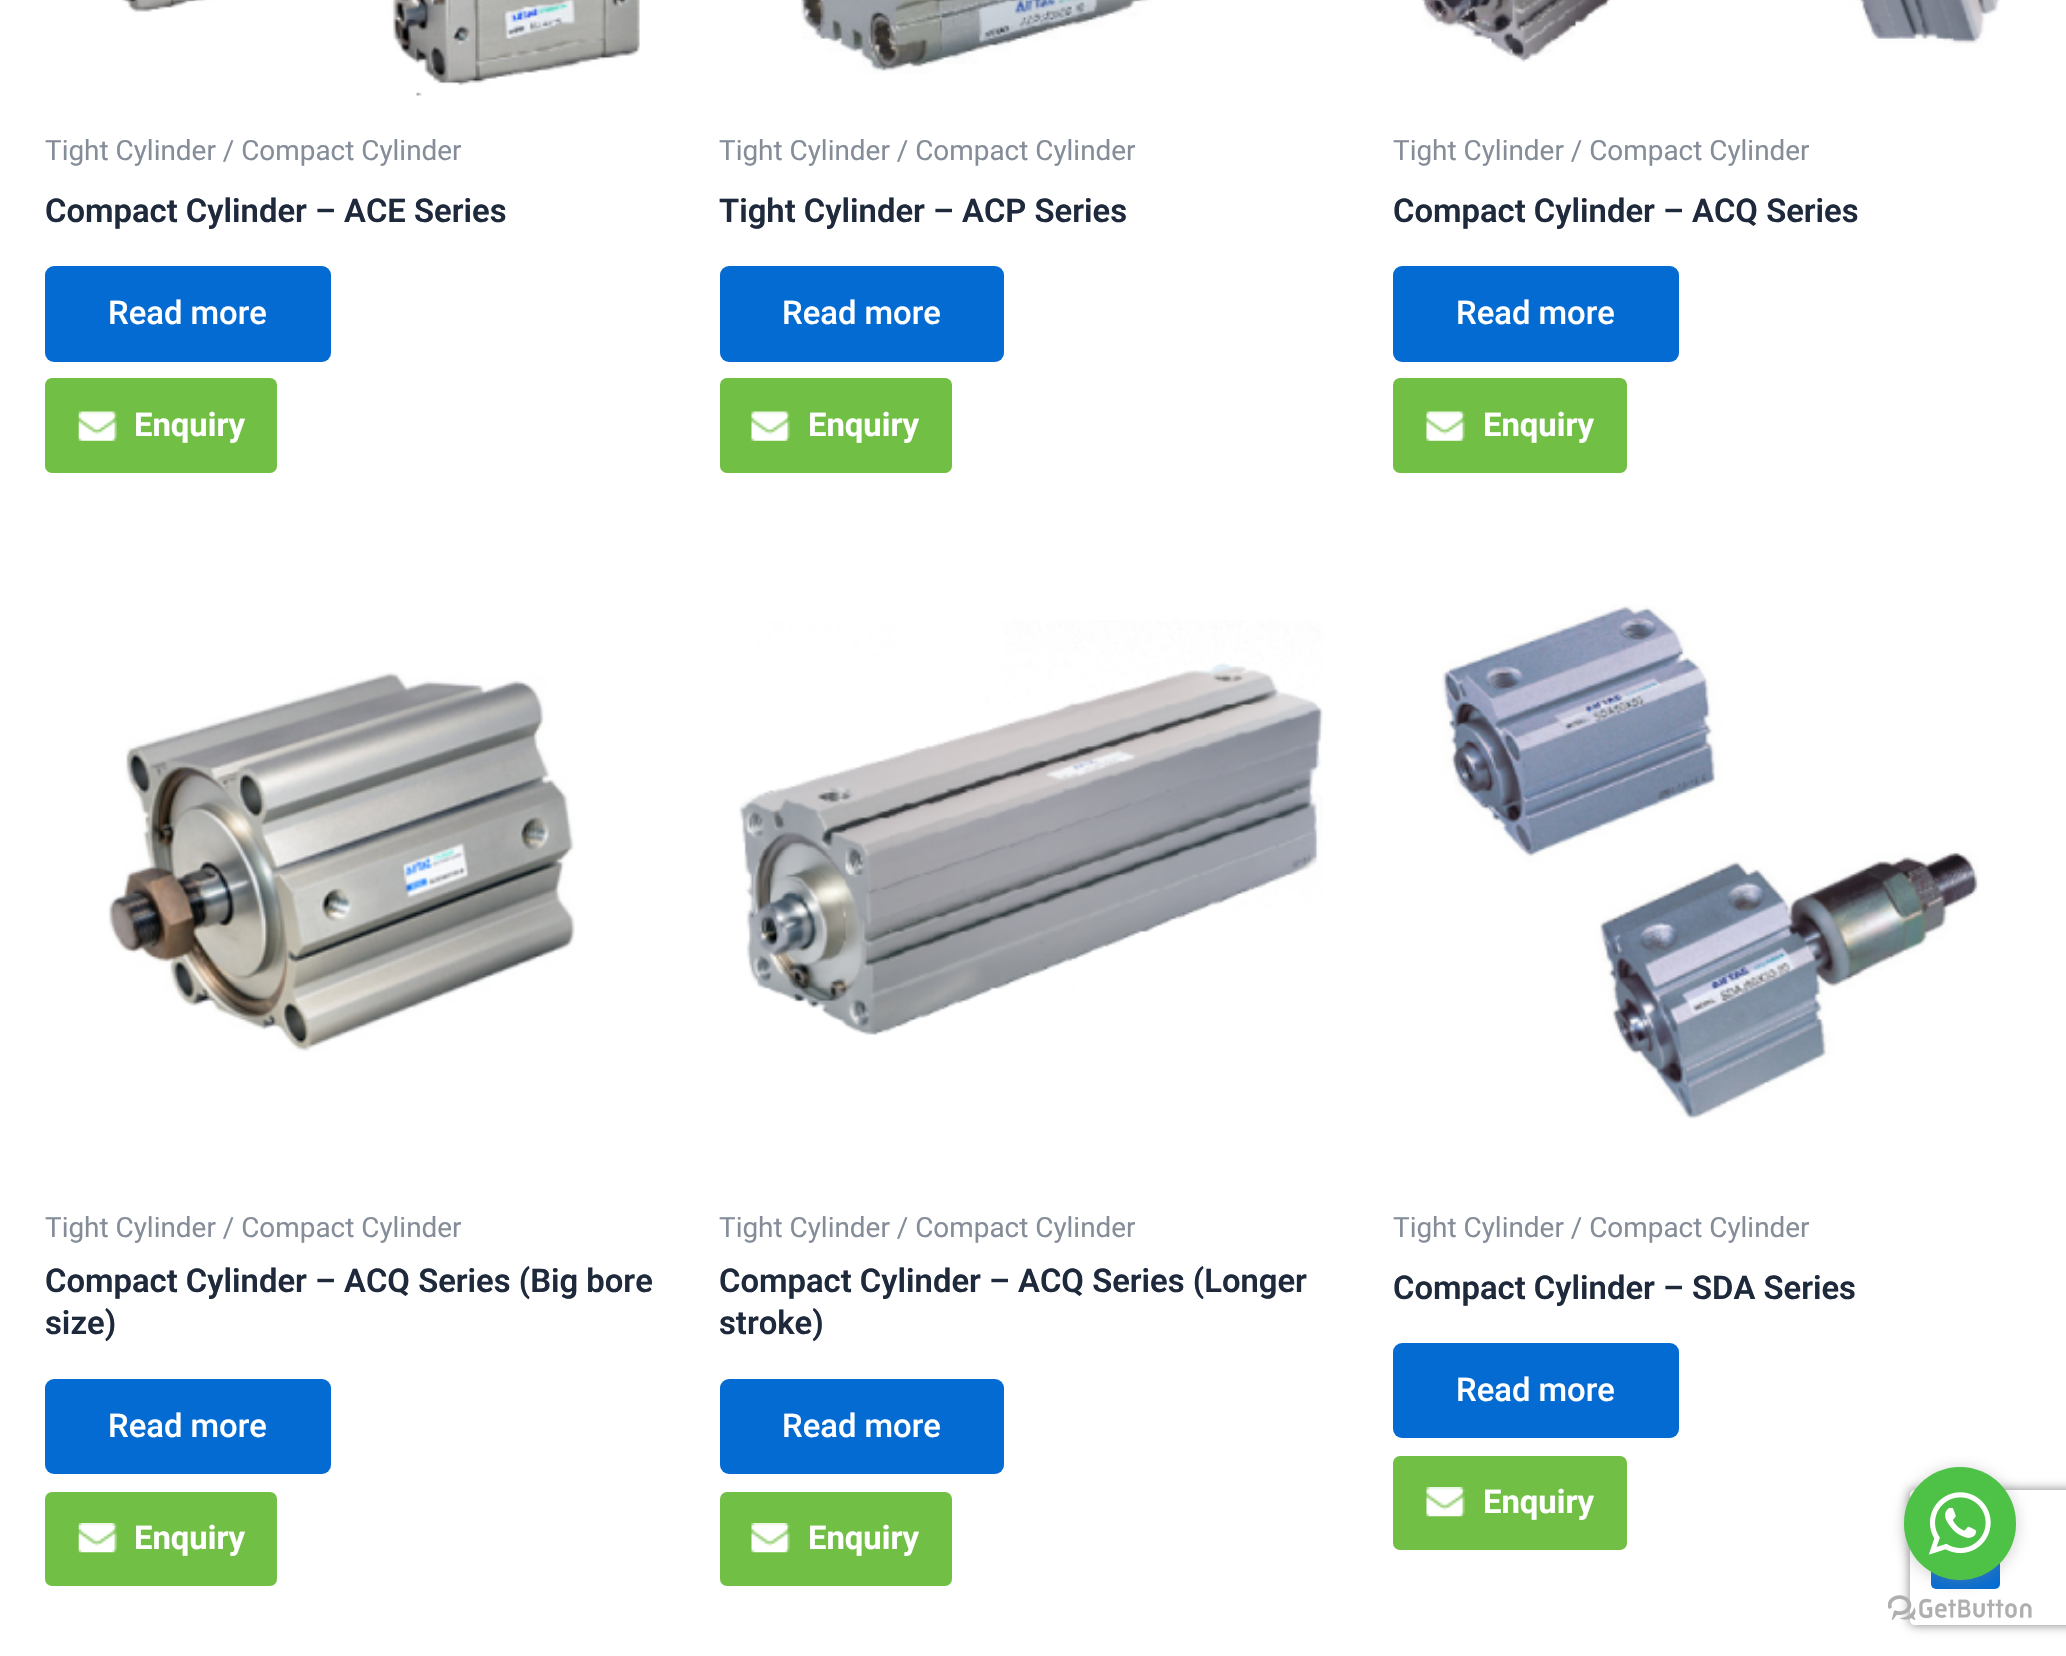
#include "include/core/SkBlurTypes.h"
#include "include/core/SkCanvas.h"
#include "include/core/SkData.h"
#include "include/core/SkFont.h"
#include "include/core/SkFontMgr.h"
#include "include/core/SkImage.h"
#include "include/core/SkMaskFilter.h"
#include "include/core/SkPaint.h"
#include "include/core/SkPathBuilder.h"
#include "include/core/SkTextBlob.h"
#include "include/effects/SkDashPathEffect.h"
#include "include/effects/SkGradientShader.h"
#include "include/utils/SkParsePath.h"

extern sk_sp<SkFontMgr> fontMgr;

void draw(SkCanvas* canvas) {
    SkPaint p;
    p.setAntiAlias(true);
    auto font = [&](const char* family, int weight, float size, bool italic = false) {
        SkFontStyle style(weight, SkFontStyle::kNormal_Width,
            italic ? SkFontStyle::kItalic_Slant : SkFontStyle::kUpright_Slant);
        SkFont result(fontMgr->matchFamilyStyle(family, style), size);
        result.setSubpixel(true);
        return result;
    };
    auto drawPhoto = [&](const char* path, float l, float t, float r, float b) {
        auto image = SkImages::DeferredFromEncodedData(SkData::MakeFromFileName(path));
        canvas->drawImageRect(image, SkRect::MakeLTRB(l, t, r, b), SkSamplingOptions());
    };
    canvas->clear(0xFFFFFFFF);
    drawPhoto("media/1.png", 121, 0, 640, 96);
    auto font1 = font("Roboto", 400, 27.9f);
    p.setColor(0xFF858D99);
    canvas->drawString("Tight Cylinder / Compact Cylinder", 45, 160, font1, p);
    auto font2 = font("Roboto", 600, 32.8f);
    p.setColor(0xFF1E293B);
    canvas->drawString("Compact Cylinder – ACE Series", 45, 222, font2, p);
    p.setColor(0xFF046BD2);
    canvas->drawRoundRect(SkRect::MakeLTRB(45, 266, 331, 362), 9, 9, p);
    auto font3 = font("Roboto", 500, 32.8f);
    p.setColor(0xFFFFFFFF);
    canvas->drawString("Read more", 108, 324, font3, p);
    p.setColor(0xFF71BF45);
    canvas->drawRoundRect(SkRect::MakeLTRB(45, 378, 277, 473), 7, 7, p);
    drawPhoto("media/2.png", 78, 411, 117, 441);
    auto font4 = font("Roboto", 700, 32.8f);
    p.setColor(0xFFFFFFFF);
    canvas->drawString("Enquiry", 134, 436, font4, p);
    drawPhoto("media/3.png", 800, 0, 1153, 74);
    p.setColor(0xFF858D99);
    canvas->drawString("Tight Cylinder / Compact Cylinder", 719, 160, font1, p);
    p.setColor(0xFF1E293B);
    canvas->drawString("Tight Cylinder – ACP Series", 719, 222, font2, p);
    p.setColor(0xFF046BD2);
    canvas->drawRoundRect(SkRect::MakeLTRB(720, 266, 1004, 362), 9, 9, p);
    p.setColor(0xFFFFFFFF);
    canvas->drawString("Read more", 782, 324, font3, p);
    p.setColor(0xFF71BF45);
    canvas->drawRoundRect(SkRect::MakeLTRB(720, 378, 952, 473), 7, 7, p);
    drawPhoto("media/4.png", 751, 411, 790, 441);
    p.setColor(0xFFFFFFFF);
    canvas->drawString("Enquiry", 808, 436, font4, p);
    drawPhoto("media/5.png", 1421, 0, 2000, 62);
    p.setColor(0xFF858D99);
    canvas->drawString("Tight Cylinder / Compact Cylinder", 1393, 160, font1, p);
    p.setColor(0xFF1E293B);
    canvas->drawString("Compact Cylinder – ACQ Series", 1393, 222, font2, p);
    p.setColor(0xFF046BD2);
    canvas->drawRoundRect(SkRect::MakeLTRB(1393, 266, 1679, 362), 9, 9, p);
    p.setColor(0xFFFFFFFF);
    canvas->drawString("Read more", 1456, 324, font3, p);
    p.setColor(0xFF71BF45);
    canvas->drawRoundRect(SkRect::MakeLTRB(1393, 378, 1627, 473), 7, 7, p);
    drawPhoto("media/6.png", 1426, 411, 1465, 441);
    p.setColor(0xFFFFFFFF);
    canvas->drawString("Enquiry", 1483, 436, font4, p);
    drawPhoto("media/7.png", 108, 672, 575, 1052);
    p.setColor(0xFF858D99);
    canvas->drawString("Tight Cylinder / Compact Cylinder", 45, 1237, font1, p);
    p.setColor(0xFF1E293B);
    canvas->drawString("Compact Cylinder – ACQ Series (Big bore", 45, 1292, font2, p);
    canvas->drawString("size)", 45, 1334, font2, p);
    p.setColor(0xFF046BD2);
    canvas->drawRoundRect(SkRect::MakeLTRB(45, 1379, 331, 1474), 9, 9, p);
    p.setColor(0xFFFFFFFF);
    canvas->drawString("Read more", 108, 1437, font3, p);
    p.setColor(0xFF71BF45);
    canvas->drawRoundRect(SkRect::MakeLTRB(45, 1492, 277, 1586), 7, 7, p);
    drawPhoto("media/8.png", 78, 1523, 117, 1553);
    p.setColor(0xFFFFFFFF);
    canvas->drawString("Enquiry", 134, 1549, font4, p);
    drawPhoto("media/9.png", 738, 620, 1323, 1035);
    p.setColor(0xFF858D99);
    canvas->drawString("Tight Cylinder / Compact Cylinder", 719, 1237, font1, p);
    p.setColor(0xFF1E293B);
    canvas->drawString("Compact Cylinder – ACQ Series (Longer", 719, 1292, font2, p);
    canvas->drawString("stroke)", 719, 1334, font2, p);
    p.setColor(0xFF046BD2);
    canvas->drawRoundRect(SkRect::MakeLTRB(720, 1379, 1004, 1474), 9, 9, p);
    p.setColor(0xFFFFFFFF);
    canvas->drawString("Read more", 782, 1437, font3, p);
    p.setColor(0xFF71BF45);
    canvas->drawRoundRect(SkRect::MakeLTRB(720, 1492, 952, 1586), 7, 7, p);
    drawPhoto("media/10.png", 751, 1523, 790, 1553);
    p.setColor(0xFFFFFFFF);
    canvas->drawString("Enquiry", 808, 1549, font4, p);
    drawPhoto("media/11.png", 1441, 605, 1979, 1119);
    p.setColor(0xFF858D99);
    canvas->drawString("Tight Cylinder / Compact Cylinder", 1393, 1237, font1, p);
    p.setColor(0xFF1E293B);
    canvas->drawString("Compact Cylinder – SDA Series", 1393, 1299, font2, p);
    p.setColor(0xFF046BD2);
    canvas->drawRoundRect(SkRect::MakeLTRB(1393, 1343, 1679, 1438), 9, 9, p);
    p.setColor(0xFFFFFFFF);
    canvas->drawString("Read more", 1456, 1401, font3, p);
    p.setColor(0xFF71BF45);
    canvas->drawRoundRect(SkRect::MakeLTRB(1393, 1456, 1627, 1550), 7, 7, p);
    drawPhoto("media/12.png", 1426, 1487, 1465, 1517);
    p.setColor(0xFFFFFFFF);
    canvas->drawString("Enquiry", 1483, 1513, font4, p);
    canvas->save();
    canvas->clipPath(SkPathBuilder(SkPathFillType::kEvenOdd).moveTo(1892, 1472).lineTo(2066, 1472).lineTo(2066, 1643).lineTo(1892, 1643).close().moveTo(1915, 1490).lineTo(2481, 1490).cubicTo(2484, 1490, 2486, 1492, 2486, 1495).lineTo(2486, 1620).cubicTo(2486, 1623, 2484, 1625, 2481, 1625).lineTo(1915, 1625).cubicTo(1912, 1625, 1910, 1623, 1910, 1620).lineTo(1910, 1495).cubicTo(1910, 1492, 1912, 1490, 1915, 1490).close().detach(), true);
    p.setColor(0xFF808080);
    p.setMaskFilter(SkMaskFilter::MakeBlur(kNormal_SkBlurStyle, 5.5f));
    canvas->drawRoundRect(SkRect::MakeLTRB(1910, 1490, 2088, 1625), 5, 5, p);
    p.setMaskFilter(nullptr);
    canvas->restore();
    drawPhoto("media/14.png", 1888, 1595, 2032, 1620);
    p.setColor(0xFF046BD2);
    canvas->drawRoundRect(SkRect::MakeLTRB(1931, 1519, 2000, 1589), 5, 5, p);
    p.setColor(0x66888888);
    p.setMaskFilter(SkMaskFilter::MakeBlur(kNormal_SkBlurStyle, 8));
    canvas->drawRoundRect(SkRect::MakeLTRB(1904, 1469, 2016, 1582), 56, 56, p);
    p.setMaskFilter(nullptr);
    p.setColor(0xFF4DC247);
    canvas->drawRoundRect(SkRect::MakeLTRB(1904, 1467, 2016, 1580), 56, 56, p);
    drawPhoto("media/13.png", 1928, 1492, 1991, 1555);
}
